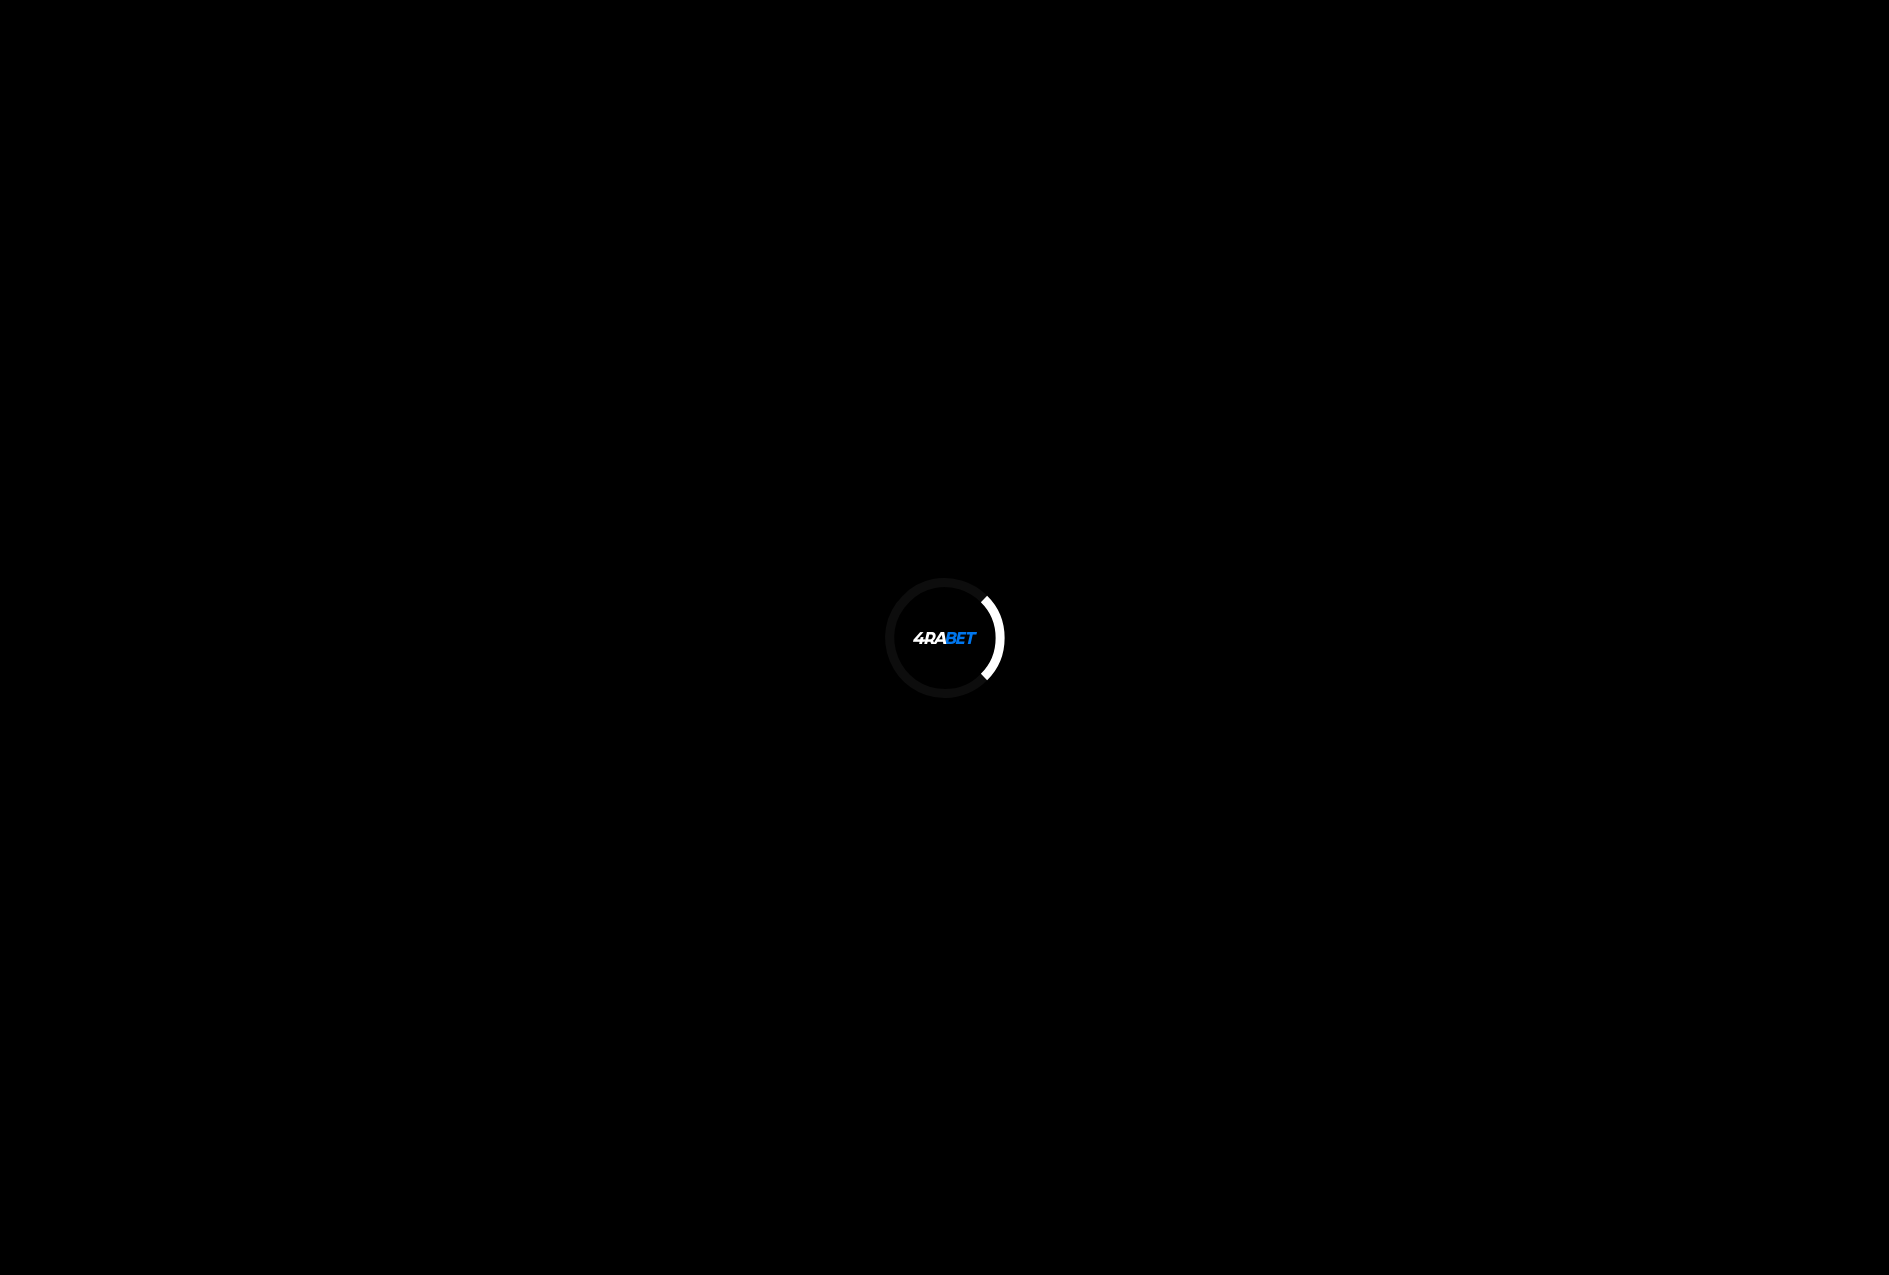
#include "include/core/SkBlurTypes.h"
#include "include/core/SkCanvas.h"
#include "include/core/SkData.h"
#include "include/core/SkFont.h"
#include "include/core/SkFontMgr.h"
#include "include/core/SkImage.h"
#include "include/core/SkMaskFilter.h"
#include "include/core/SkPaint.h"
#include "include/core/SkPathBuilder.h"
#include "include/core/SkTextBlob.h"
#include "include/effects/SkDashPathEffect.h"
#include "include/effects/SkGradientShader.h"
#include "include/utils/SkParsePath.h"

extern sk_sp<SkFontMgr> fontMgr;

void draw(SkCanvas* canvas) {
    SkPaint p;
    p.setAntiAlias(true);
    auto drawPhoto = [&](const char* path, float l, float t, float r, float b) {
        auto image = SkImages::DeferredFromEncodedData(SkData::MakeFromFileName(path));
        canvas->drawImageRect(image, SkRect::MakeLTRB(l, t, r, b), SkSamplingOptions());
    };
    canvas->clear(0xFF000000);
    p.setStyle(SkPaint::kStroke_Style);
    p.setStrokeWidth(9);
    p.setColor(0xFFFFFFFF);
    canvas->drawPath(SkPathBuilder().moveTo(984, 599).cubicTo(1005.5f, 620, 1005.5f, 656, 984, 677).detach(), p);
    p.setColor(0x0DFFFFFF);
    canvas->drawPath(SkPathBuilder().moveTo(984, 677).cubicTo(974, 687.5f, 959.5f, 693.5f, 945, 693.5f).cubicTo(896, 693.5f, 871, 633.5f, 906, 599).cubicTo(913.5f, 591, 923.5f, 585.5f, 934, 583.5f).cubicTo(952, 580, 971, 586, 984, 599).detach(), p);
    drawPhoto("media/1.png", 913, 632, 977, 644);
}
